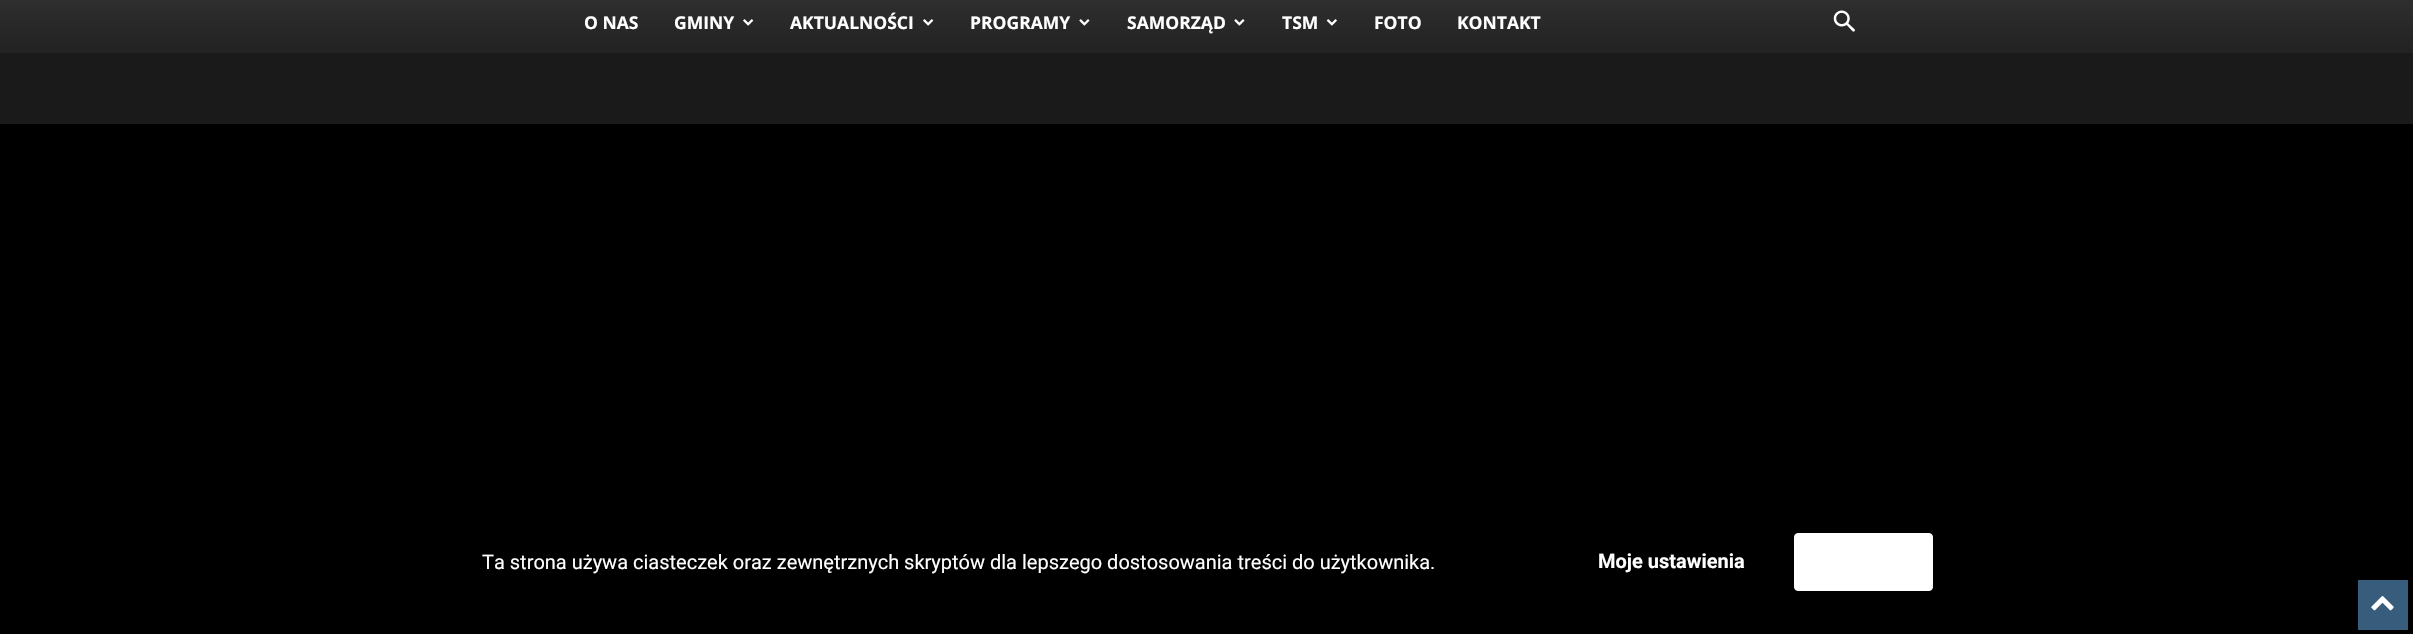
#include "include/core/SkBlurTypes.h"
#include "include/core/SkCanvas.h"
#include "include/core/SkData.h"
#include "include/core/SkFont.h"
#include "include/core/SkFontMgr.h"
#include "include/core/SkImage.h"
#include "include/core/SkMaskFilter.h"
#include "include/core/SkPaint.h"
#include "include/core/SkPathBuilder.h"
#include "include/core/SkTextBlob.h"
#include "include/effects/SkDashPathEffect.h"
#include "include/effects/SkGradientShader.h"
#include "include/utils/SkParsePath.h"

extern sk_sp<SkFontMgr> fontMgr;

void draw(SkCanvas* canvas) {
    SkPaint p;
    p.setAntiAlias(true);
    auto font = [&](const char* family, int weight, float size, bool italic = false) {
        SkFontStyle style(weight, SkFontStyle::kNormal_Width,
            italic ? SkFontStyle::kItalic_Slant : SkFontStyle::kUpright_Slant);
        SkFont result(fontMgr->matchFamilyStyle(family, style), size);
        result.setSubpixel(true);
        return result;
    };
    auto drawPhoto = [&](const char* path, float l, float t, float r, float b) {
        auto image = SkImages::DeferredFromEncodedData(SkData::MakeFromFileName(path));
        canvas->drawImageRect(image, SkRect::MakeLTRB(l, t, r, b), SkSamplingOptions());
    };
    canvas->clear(0xFF1A1A1A);
    {
        const SkColor colors[] = {0xFF303030, 0xFF222222};
        const float stops[] = {0, 1};
        const SkPoint ends[] = {{1207, -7.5f}, {1207, 53}};
        p.setShader(SkGradientShader::MakeLinear(ends, colors, stops, 2, SkTileMode::kClamp));
        p.setAlpha(255);
    }
    canvas->drawRect(SkRect::MakeLTRB(0, 0, 2413, 53), p);
    auto font1 = font("Open Sans", 700, 17.5f);
    p.setShader(nullptr);
    p.setColor(0xFFFFFFFF);
    canvas->drawString("O NAS", 584, 29, font1, p);
    canvas->drawString("GMINY", 674, 29, font1, p);
    drawPhoto("media/1.png", 743, 19, 754, 26);
    canvas->drawString("AKTUALNOŚCI", 790, 29, font1, p);
    drawPhoto("media/1.png", 923, 19, 934, 26);
    canvas->drawString("PROGRAMY", 970, 29, font1, p);
    drawPhoto("media/2.png", 1079, 19, 1090, 26);
    canvas->drawString("SAMORZĄD", 1127, 29, font1, p);
    drawPhoto("media/2.png", 1234, 19, 1245, 26);
    canvas->drawString("TSM", 1282, 29, font1, p);
    drawPhoto("media/3.png", 1326, 19, 1337, 26);
    canvas->drawString("FOTO", 1374, 29, font1, p);
    canvas->drawString("KONTAKT", 1457, 29, font1, p);
    drawPhoto("media/4.png", 1833, 10, 1855, 32);
    p.setColor(0xFF000000);
    canvas->drawRect(SkRect::MakeLTRB(0, 124, 2413, 634), p);
    auto font2 = font("Roboto", 400, 20);
    p.setColor(0xFFFFFFFF);
    canvas->drawString("Ta strona używa ciasteczek oraz zewnętrznych skryptów dla lepszego dostosowania treści do użytkownika.", 482, 569, font2, p);
    auto font3 = font("Roboto", 700, 20);
    canvas->drawString("Moje ustawienia", 1598, 568, font3, p);
    canvas->drawRoundRect(SkRect::MakeLTRB(1794.5f, 533.5f, 1932.5f, 590.5f), 3.5f, 3.5f, p);
    p.setStyle(SkPaint::kStroke_Style);
    p.setStrokeWidth(1);
    canvas->drawRoundRect(SkRect::MakeLTRB(1794.5f, 533.5f, 1932.5f, 590.5f), 3.5f, 3.5f, p);
    p.setStyle(SkPaint::kFill_Style);
    p.setColor(0xFF385C7B);
    canvas->drawRect(SkRect::MakeLTRB(2358, 580, 2408, 630), p);
    drawPhoto("media/5.png", 2371, 596, 2394, 611);
}
